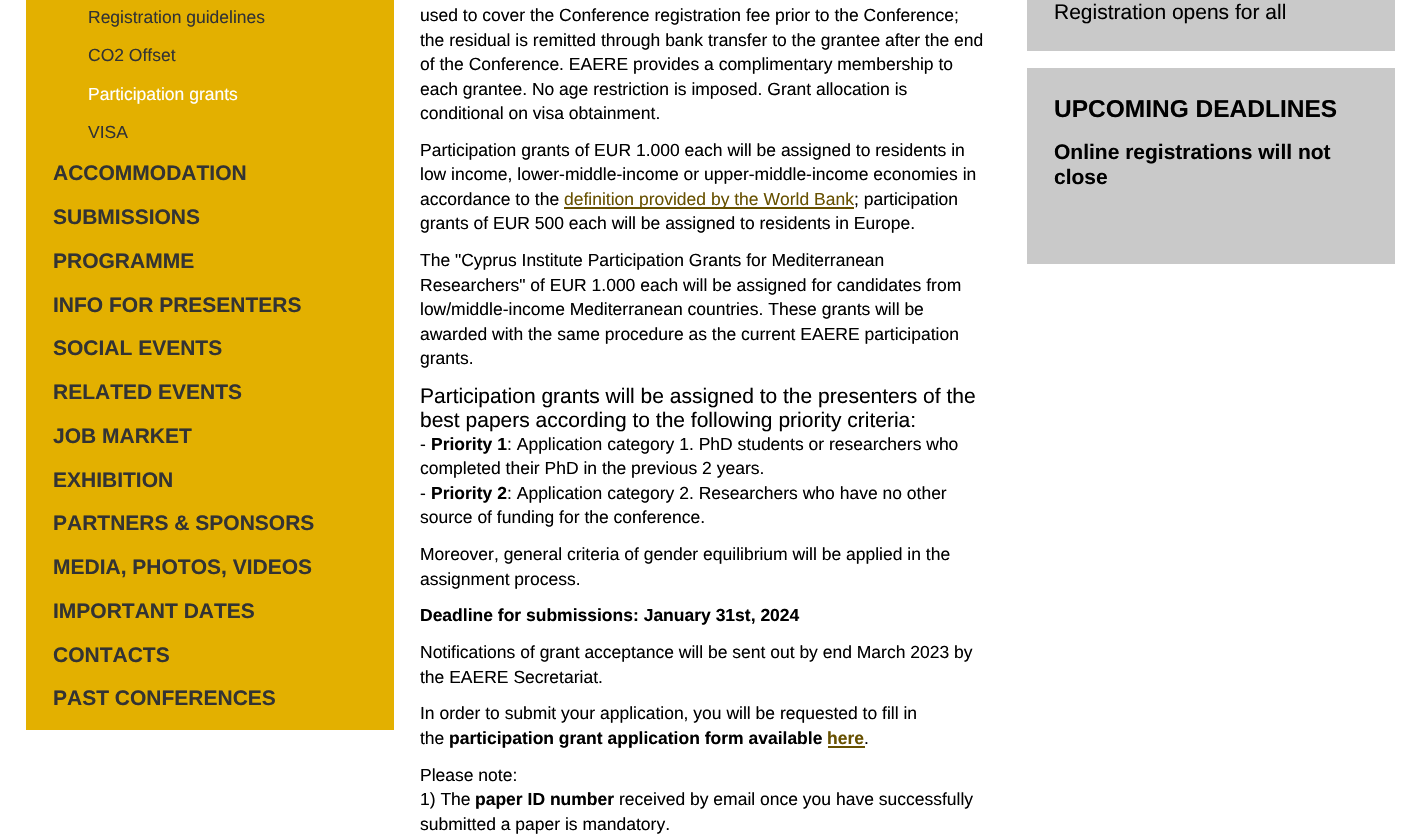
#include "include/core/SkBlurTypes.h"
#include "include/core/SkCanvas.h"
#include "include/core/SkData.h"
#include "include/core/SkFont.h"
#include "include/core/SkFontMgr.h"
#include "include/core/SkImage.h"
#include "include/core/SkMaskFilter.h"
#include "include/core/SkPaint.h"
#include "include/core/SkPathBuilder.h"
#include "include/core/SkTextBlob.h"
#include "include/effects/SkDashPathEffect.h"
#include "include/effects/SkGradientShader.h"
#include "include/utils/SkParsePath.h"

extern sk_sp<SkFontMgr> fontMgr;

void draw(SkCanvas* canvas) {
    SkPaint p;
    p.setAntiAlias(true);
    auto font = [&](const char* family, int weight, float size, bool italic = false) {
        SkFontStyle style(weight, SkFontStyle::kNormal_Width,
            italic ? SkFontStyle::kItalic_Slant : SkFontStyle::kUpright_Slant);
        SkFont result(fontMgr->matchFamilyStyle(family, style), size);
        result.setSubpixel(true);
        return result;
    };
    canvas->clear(0xFFFFFFFF);
    p.setColor(0xFFE3B000);
    canvas->drawRect(SkRect::MakeLTRB(26, 0, 394, 730), p);
    auto font1 = font("Liberation Sans", 400, 17.5f);
    p.setColor(0xFF333333);
    canvas->drawString("Registration guidelines", 88, 23, font1, p);
    canvas->drawString("CO2 Offset", 88, 61, font1, p);
    p.setColor(0xFFFFFFFF);
    canvas->drawString("Participation grants", 88, 100, font1, p);
    p.setColor(0xFF333333);
    canvas->drawString("VISA", 88, 138, font1, p);
    auto font2 = font("Liberation Sans", 700, 21);
    {
        const struct { const char* s; float x, y; } items[] = {
            {"ACCOMMODATION", 53, 180},
            {"SUBMISSIONS", 53, 224},
            {"PROGRAMME", 53, 268},
            {"INFO FOR PRESENTERS", 53, 312},
            {"SOCIAL EVENTS", 53, 355},
            {"RELATED EVENTS", 53, 399},
            {"JOB MARKET", 53, 443},
            {"EXHIBITION", 53, 487},
            {"PARTNERS & SPONSORS", 53, 530},
            {"MEDIA, PHOTOS, VIDEOS", 53, 574},
            {"IMPORTANT DATES", 53, 618},
            {"CONTACTS", 53, 662},
            {"PAST CONFERENCES", 53, 705},
        };
        for (auto [s, x, y] : items) {
            canvas->drawString(s, x, y, font2, p);
        }
    }
    p.setColor(0xFF000000);
    {
        const struct { const char* s; float x, y; } items[] = {
            {"used to cover the Conference registration fee prior to the Conference;", 420, 21},
            {"the residual is remitted through bank transfer to the grantee after the end", 420, 46},
            {"of the Conference. EAERE provides a complimentary membership to", 420, 70},
            {"each grantee. No age restriction is imposed. Grant allocation is", 420, 95},
            {"conditional on visa obtainment.", 420, 119},
            {"Participation grants of EUR 1.000 each will be assigned to residents in", 420, 156},
            {"low income, lower-middle-income or upper-middle-income economies in", 420, 180},
            {"accordance to the", 420, 205},
        };
        for (auto [s, x, y] : items) {
            canvas->drawString(s, x, y, font1, p);
        }
    }
    p.setColor(0xFF675000);
    canvas->drawRect(SkRect::MakeLTRB(564, 207, 854, 209), p);
    canvas->drawString("definition provided by the World Bank", 564, 205, font1, p);
    p.setColor(0xFF000000);
    {
        const struct { const char* s; float x, y; } items[] = {
            {"; participation", 854, 205},
            {"grants of EUR 500 each will be assigned to residents in Europe.", 420, 229},
            {"The \"Cyprus Institute Participation Grants for Mediterranean", 420, 266},
            {"Researchers\" of EUR 1.000 each will be assigned for candidates from", 420, 291},
            {"low/middle-income Mediterranean countries. These grants will be", 420, 315},
            {"awarded with the same procedure as the current EAERE participation", 420, 340},
            {"grants.", 420, 364},
        };
        for (auto [s, x, y] : items) {
            canvas->drawString(s, x, y, font1, p);
        }
    }
    auto font3 = font("Liberation Sans", 400, 21);
    canvas->drawString("Participation grants will be assigned to the presenters of the", 420, 403, font3, p);
    canvas->drawString("best papers according to the following priority criteria:", 420, 427, font3, p);
    canvas->drawString("-", 420, 450, font1, p);
    auto font4 = font("Liberation Sans", 700, 17.5f);
    canvas->drawString("Priority 1", 431, 450, font4, p);
    {
        const struct { const char* s; float x, y; } items[] = {
            {": Application category 1. PhD students or researchers who", 507, 450},
            {"completed their PhD in the previous 2 years.", 420, 474},
            {"-", 420, 499},
        };
        for (auto [s, x, y] : items) {
            canvas->drawString(s, x, y, font1, p);
        }
    }
    canvas->drawString("Priority 2", 431, 499, font4, p);
    {
        const struct { const char* s; float x, y; } items[] = {
            {": Application category 2. Researchers who have no other", 507, 499},
            {"source of funding for the conference.", 420, 523},
            {"Moreover, general criteria of gender equilibrium will be applied in the", 420, 560},
            {"assignment process.", 420, 585},
        };
        for (auto [s, x, y] : items) {
            canvas->drawString(s, x, y, font1, p);
        }
    }
    canvas->drawString("Deadline for submissions: January 31st, 2024", 420, 621, font4, p);
    {
        const struct { const char* s; float x, y; } items[] = {
            {"Notifications of grant acceptance will be sent out by end March 2023 by", 420, 658},
            {"the EAERE Secretariat.", 420, 683},
            {"In order to submit your application, you will be requested to fill in", 420, 719},
            {"the", 420, 744},
        };
        for (auto [s, x, y] : items) {
            canvas->drawString(s, x, y, font1, p);
        }
    }
    canvas->drawString("participation grant application form available", 449, 744, font4, p);
    p.setColor(0xFF675000);
    canvas->drawString("here", 827, 744, font4, p);
    canvas->drawRect(SkRect::MakeLTRB(828, 746, 865, 748), p);
    p.setColor(0xFF000000);
    {
        const struct { const char* s; float x, y; } items[] = {
            {".", 864, 744},
            {"Please note:", 420, 781},
            {"1) The", 420, 805},
        };
        for (auto [s, x, y] : items) {
            canvas->drawString(s, x, y, font1, p);
        }
    }
    canvas->drawString("paper ID number", 475, 805, font4, p);
    canvas->drawString("received by email once you have successfully", 619, 805, font1, p);
    canvas->drawString("submitted a paper is mandatory.", 420, 830, font1, p);
    p.setColor(0xFFC9C9C9);
    canvas->drawRect(SkRect::MakeLTRB(1027, 0, 1395, 51), p);
    p.setColor(0xFF000000);
    canvas->drawString("Registration opens for all", 1054, 19, font3, p);
    p.setColor(0xFFC9C9C9);
    canvas->drawRect(SkRect::MakeLTRB(1027, 68, 1395, 264), p);
    auto font5 = font("Liberation Sans", 700, 24.5f);
    p.setColor(0xFF000000);
    canvas->drawString("UPCOMING DEADLINES", 1054, 117, font5, p);
    canvas->drawString("Online registrations will not", 1054, 159, font2, p);
    canvas->drawString("close", 1054, 184, font2, p);
}
